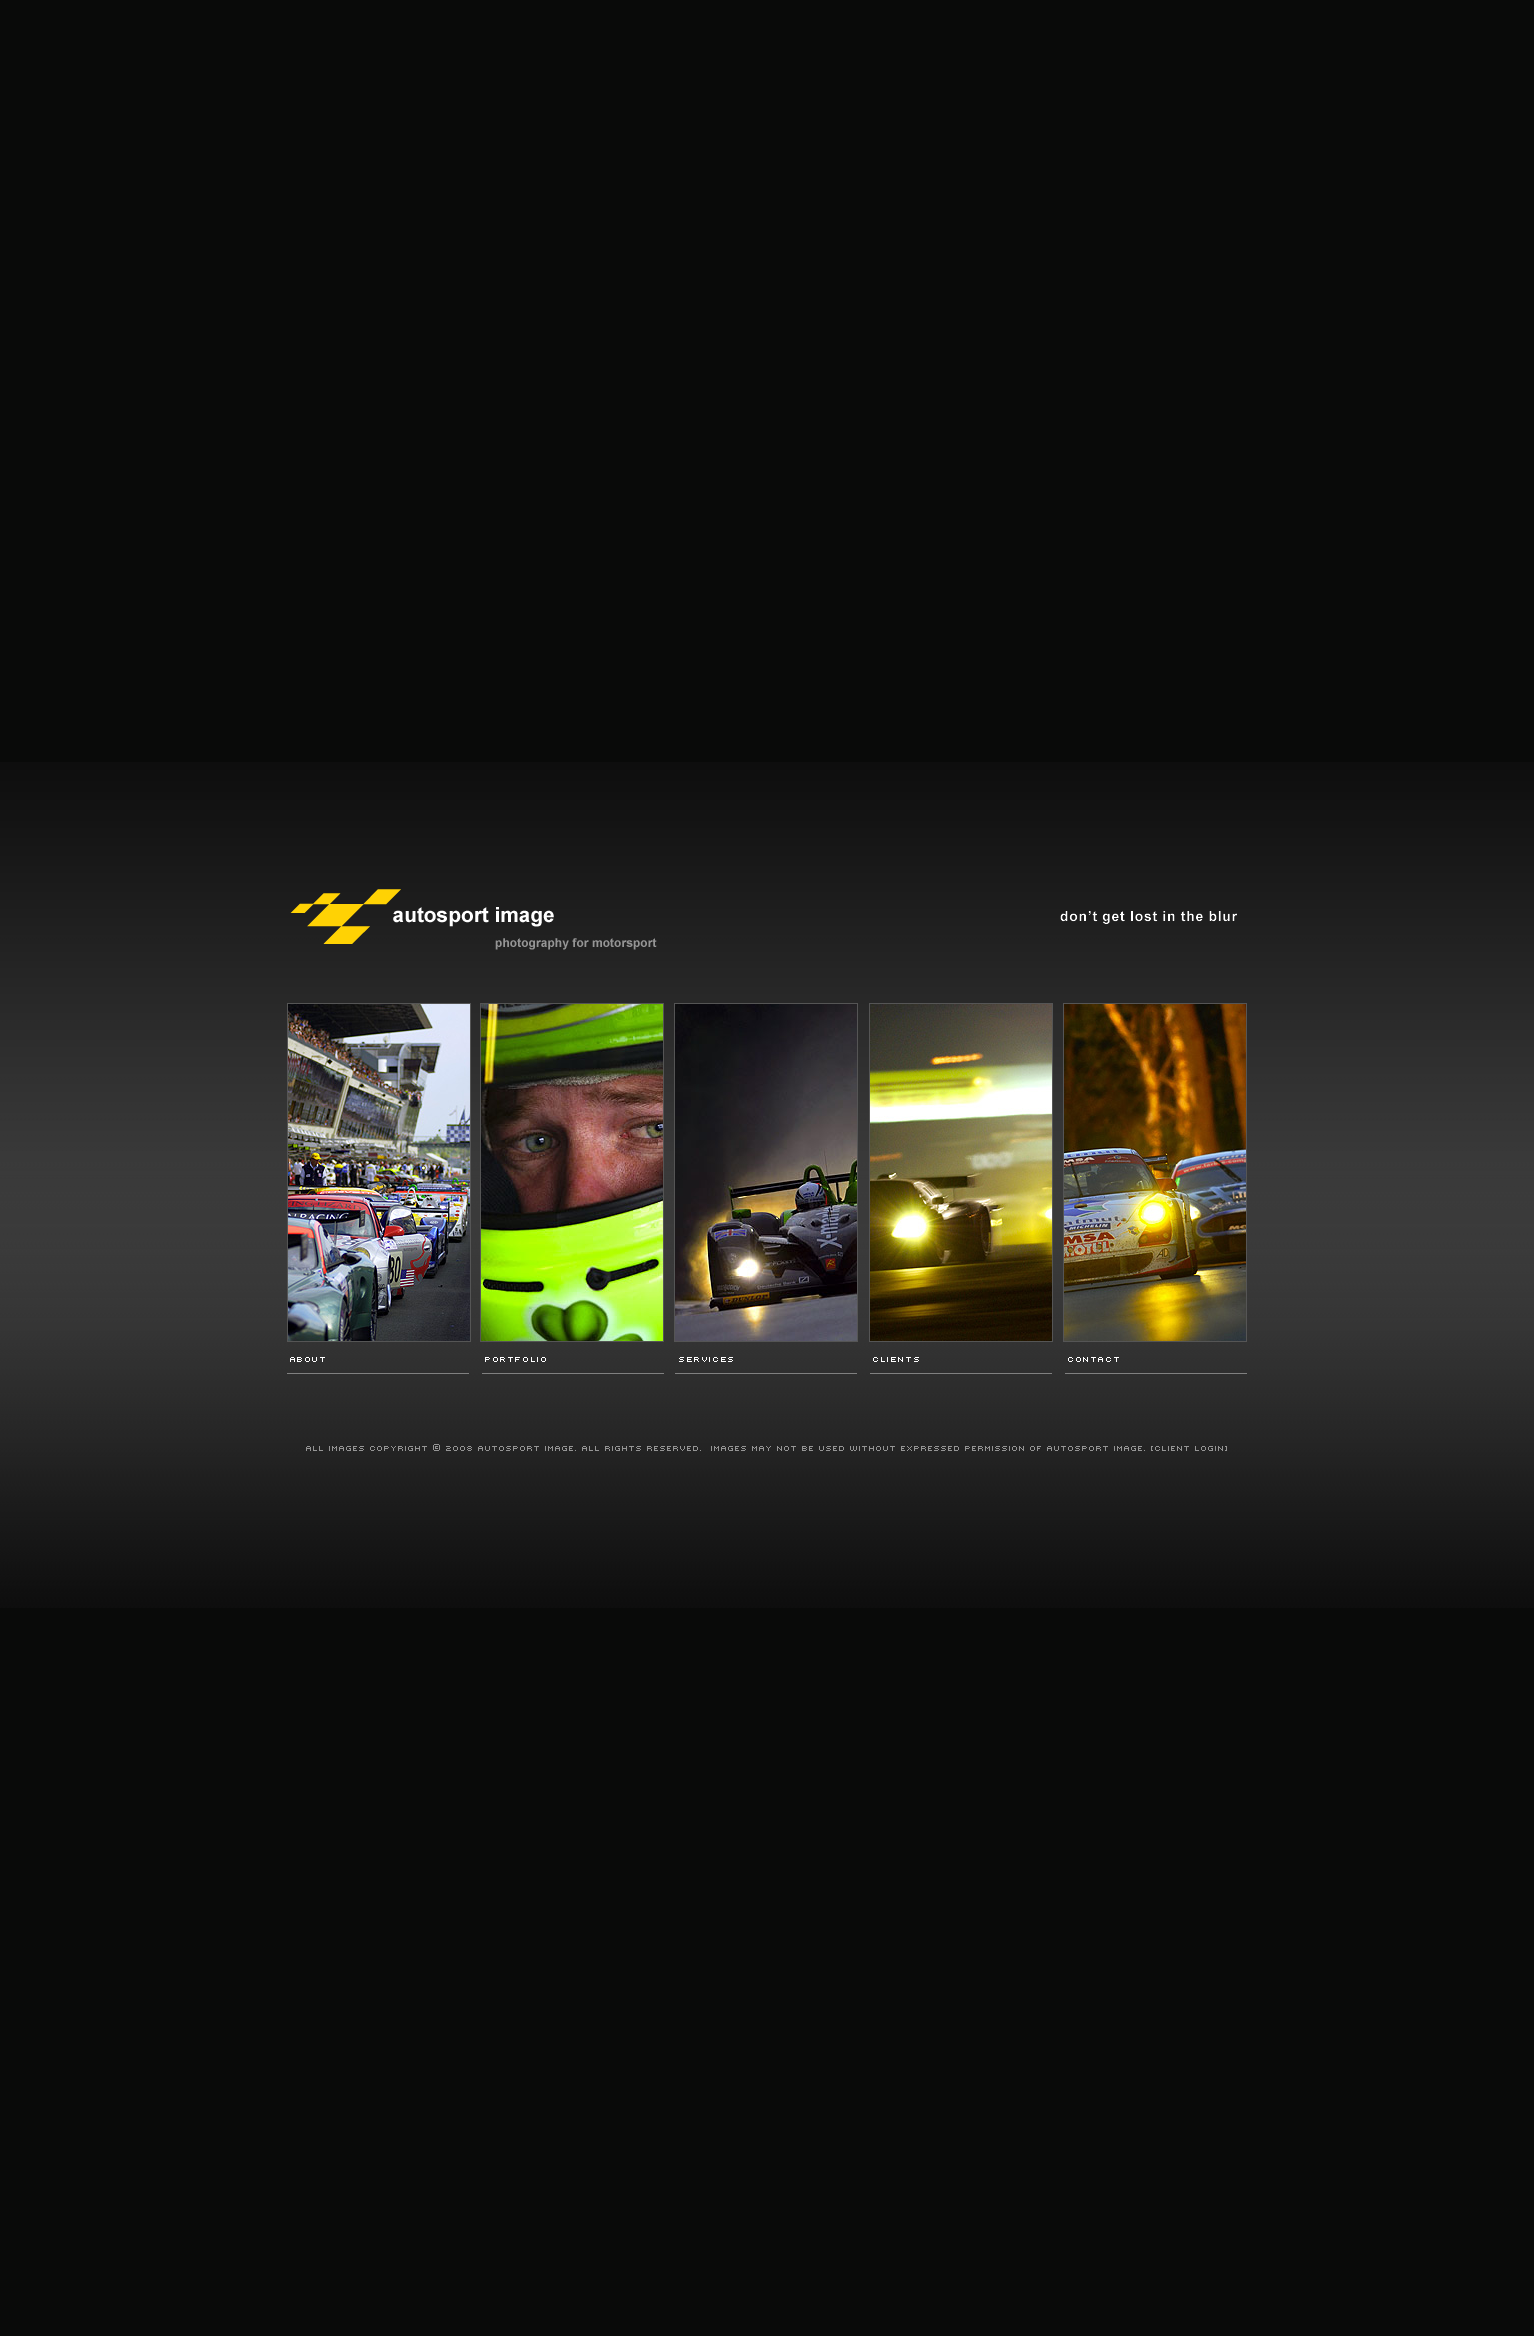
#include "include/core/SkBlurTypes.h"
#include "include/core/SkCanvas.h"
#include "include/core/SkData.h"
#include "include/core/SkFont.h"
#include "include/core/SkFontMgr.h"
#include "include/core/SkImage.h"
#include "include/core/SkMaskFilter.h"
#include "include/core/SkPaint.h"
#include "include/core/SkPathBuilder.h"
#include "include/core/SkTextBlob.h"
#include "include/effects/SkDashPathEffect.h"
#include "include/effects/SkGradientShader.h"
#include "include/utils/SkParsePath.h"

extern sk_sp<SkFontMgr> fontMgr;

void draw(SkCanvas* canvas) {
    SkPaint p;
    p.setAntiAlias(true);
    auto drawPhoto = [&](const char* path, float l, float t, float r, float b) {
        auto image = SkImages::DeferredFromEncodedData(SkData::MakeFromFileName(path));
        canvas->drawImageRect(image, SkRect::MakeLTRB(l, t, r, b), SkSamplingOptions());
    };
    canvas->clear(0xFF090A09);
    drawPhoto("media/1.png", 0, 762, 1534, 1608);
    drawPhoto("media/2.png", 290, 889, 657, 950);
    drawPhoto("media/3.png", 1060, 911, 1237, 924);
    drawPhoto("media/4.png", 287, 1357, 1247, 1374);
    drawPhoto("media/5.png", 288, 1004, 470, 1341);
    p.setStyle(SkPaint::kStroke_Style);
    p.setStrokeWidth(1);
    p.setColor(0xFF555555);
    canvas->drawRect(SkRect::MakeLTRB(287.5f, 1003.5f, 470.5f, 1341.5f), p);
    drawPhoto("media/6.png", 481, 1004, 663, 1341);
    canvas->drawRect(SkRect::MakeLTRB(480.5f, 1003.5f, 663.5f, 1341.5f), p);
    drawPhoto("media/7.png", 675, 1004, 857, 1341);
    canvas->drawRect(SkRect::MakeLTRB(674.5f, 1003.5f, 857.5f, 1341.5f), p);
    drawPhoto("media/8.png", 870, 1004, 1052, 1341);
    canvas->drawRect(SkRect::MakeLTRB(869.5f, 1003.5f, 1052.5f, 1341.5f), p);
    drawPhoto("media/9.png", 1064, 1004, 1246, 1341);
    canvas->drawRect(SkRect::MakeLTRB(1063.5f, 1003.5f, 1246.5f, 1341.5f), p);
    drawPhoto("media/10.png", 306, 1444, 1227, 1451);
}
